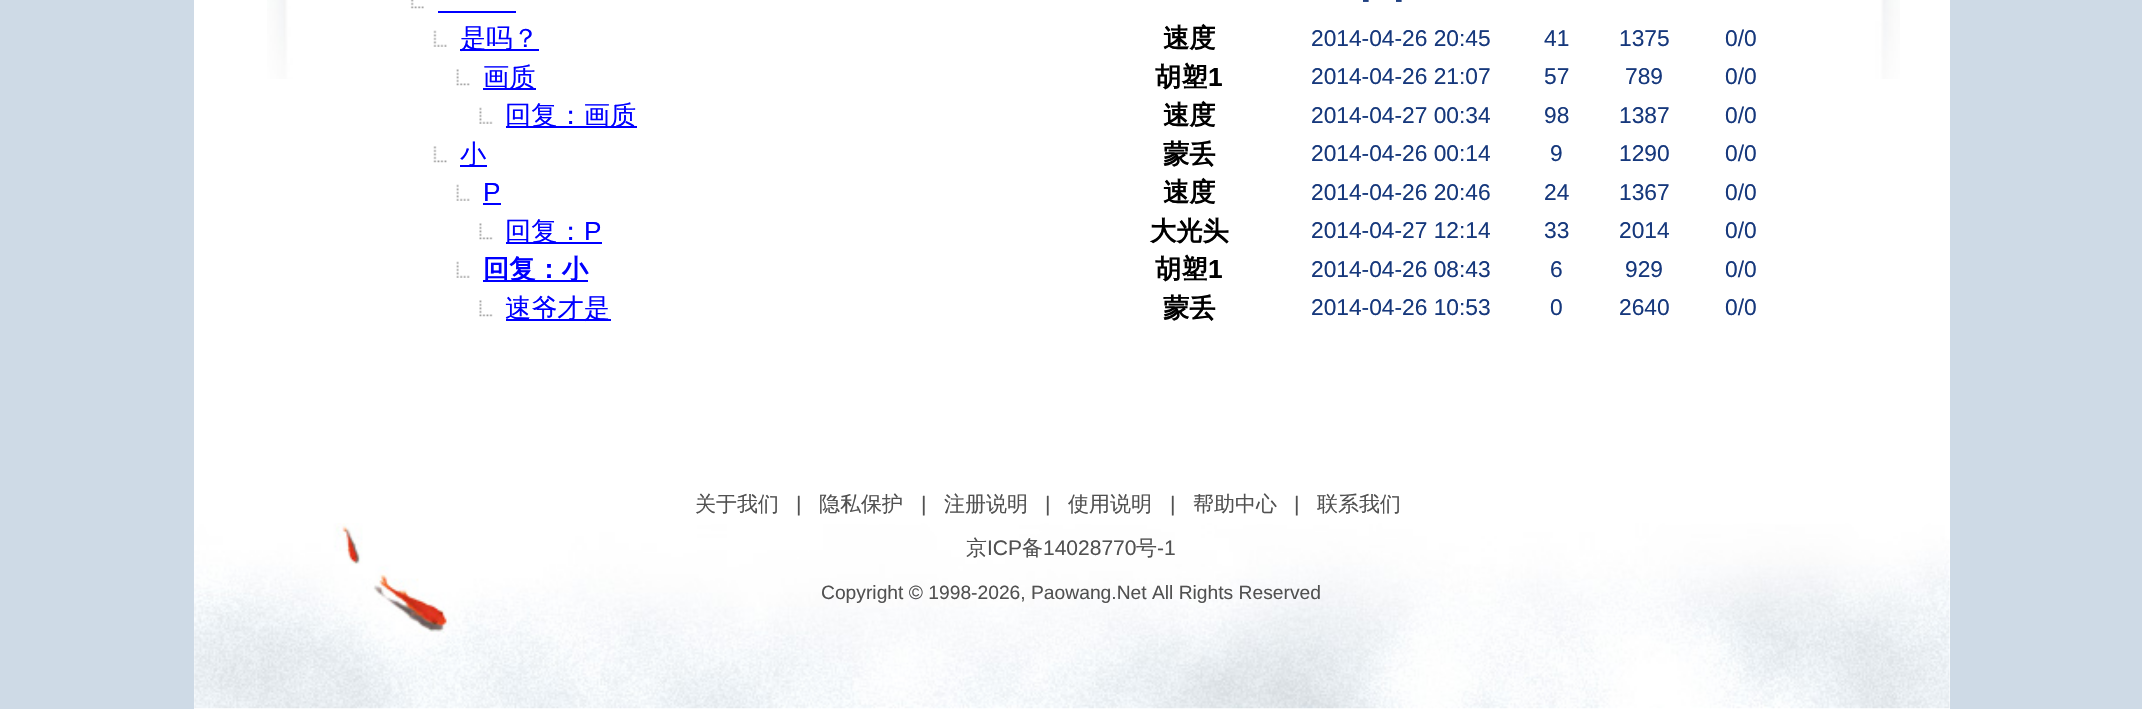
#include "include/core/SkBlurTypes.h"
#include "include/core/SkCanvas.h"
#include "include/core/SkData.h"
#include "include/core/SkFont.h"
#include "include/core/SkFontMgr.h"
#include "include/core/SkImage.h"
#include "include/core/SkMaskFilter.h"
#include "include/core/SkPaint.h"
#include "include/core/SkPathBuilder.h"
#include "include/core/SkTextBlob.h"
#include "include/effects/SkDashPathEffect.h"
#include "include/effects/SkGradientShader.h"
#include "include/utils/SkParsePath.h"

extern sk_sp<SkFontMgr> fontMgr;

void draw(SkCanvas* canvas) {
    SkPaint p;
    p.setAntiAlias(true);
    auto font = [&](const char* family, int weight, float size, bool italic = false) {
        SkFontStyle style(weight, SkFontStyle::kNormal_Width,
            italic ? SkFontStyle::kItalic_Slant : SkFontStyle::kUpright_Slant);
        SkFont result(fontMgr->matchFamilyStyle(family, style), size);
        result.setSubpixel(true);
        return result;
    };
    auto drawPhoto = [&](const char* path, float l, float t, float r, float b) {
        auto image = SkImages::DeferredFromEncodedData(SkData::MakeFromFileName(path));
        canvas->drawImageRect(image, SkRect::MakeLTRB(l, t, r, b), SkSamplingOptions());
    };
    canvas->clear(0xFFCEDAE6);
    p.setColor(0xFFFFFFFF);
    canvas->drawRect(SkRect::MakeLTRB(194, 0, 1950, 709), p);
    drawPhoto("media/1.png", 267, 0, 1900, 79);
    drawPhoto("media/2.png", 410, 0, 424, 9);
    p.setColor(0xFF0000FF);
    canvas->drawRect(SkRect::MakeLTRB(438, 11, 516, 13), p);
    auto font1 = font("Liberation Sans", 400, 22.75f);
    p.setColor(0xFF16387C);
    canvas->drawString("-", 1362, 7, font1, p);
    canvas->drawString("-", 1395, 7, font1, p);
    drawPhoto("media/3.png", 433, 30, 447, 47);
    p.setColor(0xFF0000FF);
    canvas->drawRect(SkRect::MakeLTRB(460, 49, 539, 51), p);
    auto font2 = font("WenQuanYi Zen Hei", 500, 26.25f);
    canvas->drawString("是吗？", 460, 47, font2, p);
    auto font3 = font("WenQuanYi Zen Hei", 700, 26.25f);
    p.setColor(0xFF000000);
    canvas->drawString("速度", 1163, 47, font3, p);
    p.setColor(0xFF16387C);
    {
        const struct { const char* s; float x, y; } items[] = {
            {"2014-04-26 20:45", 1311, 46},
            {"41", 1544, 46},
            {"1375", 1619, 46},
            {"0/0", 1725, 46},
        };
        for (auto [s, x, y] : items) {
            canvas->drawString(s, x, y, font1, p);
        }
    }
    drawPhoto("media/4.png", 456, 69, 470, 86);
    p.setColor(0xFF0000FF);
    canvas->drawRect(SkRect::MakeLTRB(483, 88, 536, 90), p);
    canvas->drawString("画质", 483, 86, font2, p);
    p.setColor(0xFF000000);
    canvas->drawString("胡塑", 1155, 86, font3, p);
    auto font4 = font("Liberation Sans", 700, 26.25f);
    canvas->drawString("1", 1208, 86, font4, p);
    p.setColor(0xFF16387C);
    {
        const struct { const char* s; float x, y; } items[] = {
            {"2014-04-26 21:07", 1311, 84},
            {"57", 1544, 84},
            {"789", 1625, 84},
            {"0/0", 1725, 84},
        };
        for (auto [s, x, y] : items) {
            canvas->drawString(s, x, y, font1, p);
        }
    }
    drawPhoto("media/5.png", 479, 107, 493, 124);
    p.setColor(0xFF0000FF);
    canvas->drawRect(SkRect::MakeLTRB(506, 126, 637, 128), p);
    canvas->drawString("回复：画质", 505, 124, font2, p);
    p.setColor(0xFF000000);
    canvas->drawString("速度", 1163, 124, font3, p);
    p.setColor(0xFF16387C);
    {
        const struct { const char* s; float x, y; } items[] = {
            {"2014-04-27 00:34", 1311, 123},
            {"98", 1544, 123},
            {"1387", 1619, 123},
            {"0/0", 1725, 123},
        };
        for (auto [s, x, y] : items) {
            canvas->drawString(s, x, y, font1, p);
        }
    }
    drawPhoto("media/6.png", 433, 146, 447, 163);
    p.setColor(0xFF0000FF);
    canvas->drawRect(SkRect::MakeLTRB(460, 165, 487, 167), p);
    canvas->drawString("小", 460, 163, font2, p);
    p.setColor(0xFF000000);
    canvas->drawString("蒙丢", 1163, 163, font3, p);
    p.setColor(0xFF16387C);
    {
        const struct { const char* s; float x, y; } items[] = {
            {"2014-04-26 00:14", 1311, 161},
            {"9", 1550, 161},
            {"1290", 1619, 161},
            {"0/0", 1725, 161},
        };
        for (auto [s, x, y] : items) {
            canvas->drawString(s, x, y, font1, p);
        }
    }
    drawPhoto("media/7.png", 456, 184, 470, 201);
    auto font5 = font("Liberation Sans", 400, 26.25f);
    p.setColor(0xFF0000FF);
    canvas->drawString("P", 483, 201, font5, p);
    canvas->drawRect(SkRect::MakeLTRB(483, 203, 501, 205), p);
    p.setColor(0xFF000000);
    canvas->drawString("速度", 1163, 201, font3, p);
    p.setColor(0xFF16387C);
    {
        const struct { const char* s; float x, y; } items[] = {
            {"2014-04-26 20:46", 1311, 200},
            {"24", 1544, 200},
            {"1367", 1619, 200},
            {"0/0", 1725, 200},
        };
        for (auto [s, x, y] : items) {
            canvas->drawString(s, x, y, font1, p);
        }
    }
    drawPhoto("media/8.png", 479, 223, 493, 240);
    p.setColor(0xFF0000FF);
    canvas->drawRect(SkRect::MakeLTRB(506, 242, 602, 244), p);
    canvas->drawString("回复：", 505, 240, font2, p);
    canvas->drawString("P", 584, 240, font5, p);
    p.setColor(0xFF000000);
    canvas->drawString("大光头", 1150, 240, font3, p);
    p.setColor(0xFF16387C);
    {
        const struct { const char* s; float x, y; } items[] = {
            {"2014-04-27 12:14", 1311, 238},
            {"33", 1544, 238},
            {"2014", 1619, 238},
            {"0/0", 1725, 238},
        };
        for (auto [s, x, y] : items) {
            canvas->drawString(s, x, y, font1, p);
        }
    }
    drawPhoto("media/7.png", 456, 261, 470, 278);
    p.setColor(0xFF0000FF);
    canvas->drawRect(SkRect::MakeLTRB(483, 280, 588, 282), p);
    canvas->drawString("回复：小", 483, 278, font3, p);
    p.setColor(0xFF000000);
    canvas->drawString("胡塑", 1155, 278, font3, p);
    canvas->drawString("1", 1208, 278, font4, p);
    p.setColor(0xFF16387C);
    {
        const struct { const char* s; float x, y; } items[] = {
            {"2014-04-26 08:43", 1311, 277},
            {"6", 1550, 277},
            {"929", 1625, 277},
            {"0/0", 1725, 277},
        };
        for (auto [s, x, y] : items) {
            canvas->drawString(s, x, y, font1, p);
        }
    }
    drawPhoto("media/8.png", 479, 300, 493, 317);
    p.setColor(0xFF0000FF);
    canvas->drawRect(SkRect::MakeLTRB(506, 319, 611, 321), p);
    canvas->drawString("速爷才是", 505, 317, font2, p);
    p.setColor(0xFF000000);
    canvas->drawString("蒙丢", 1163, 317, font3, p);
    p.setColor(0xFF16387C);
    {
        const struct { const char* s; float x, y; } items[] = {
            {"2014-04-26 10:53", 1311, 315},
            {"0", 1550, 315},
            {"2640", 1619, 315},
            {"0/0", 1725, 315},
        };
        for (auto [s, x, y] : items) {
            canvas->drawString(s, x, y, font1, p);
        }
    }
    drawPhoto("media/9.png", 194, 523, 1950, 709);
    auto font6 = font("WenQuanYi Zen Hei", 500, 21);
    p.setColor(0xFF515151);
    canvas->drawString("关于我们", 695, 511, font6, p);
    auto font7 = font("Liberation Sans", 400, 21);
    canvas->drawString("|", 796, 511, font7, p);
    canvas->drawString("隐私保护", 819, 511, font6, p);
    canvas->drawString("|", 921, 511, font7, p);
    canvas->drawString("注册说明", 944, 511, font6, p);
    canvas->drawString("|", 1045, 511, font7, p);
    canvas->drawString("使用说明", 1068, 511, font6, p);
    canvas->drawString("|", 1170, 511, font7, p);
    canvas->drawString("帮助中心", 1193, 511, font6, p);
    canvas->drawString("|", 1294, 511, font7, p);
    canvas->drawString("联系我们", 1317, 511, font6, p);
    canvas->drawString("京", 966, 555, font6, p);
    canvas->drawString("ICP", 987, 555, font7, p);
    canvas->drawString("备", 1022, 555, font6, p);
    canvas->drawString("14028770", 1043, 555, font7, p);
    canvas->drawString("号", 1136, 555, font6, p);
    canvas->drawString("-1", 1157, 555, font7, p);
    auto font8 = font("Liberation Sans", 400, 19.25f);
    canvas->drawString("Copyright © 1998-2026, Paowang.Net All Rights Reserved", 821, 599, font8, p);
}
